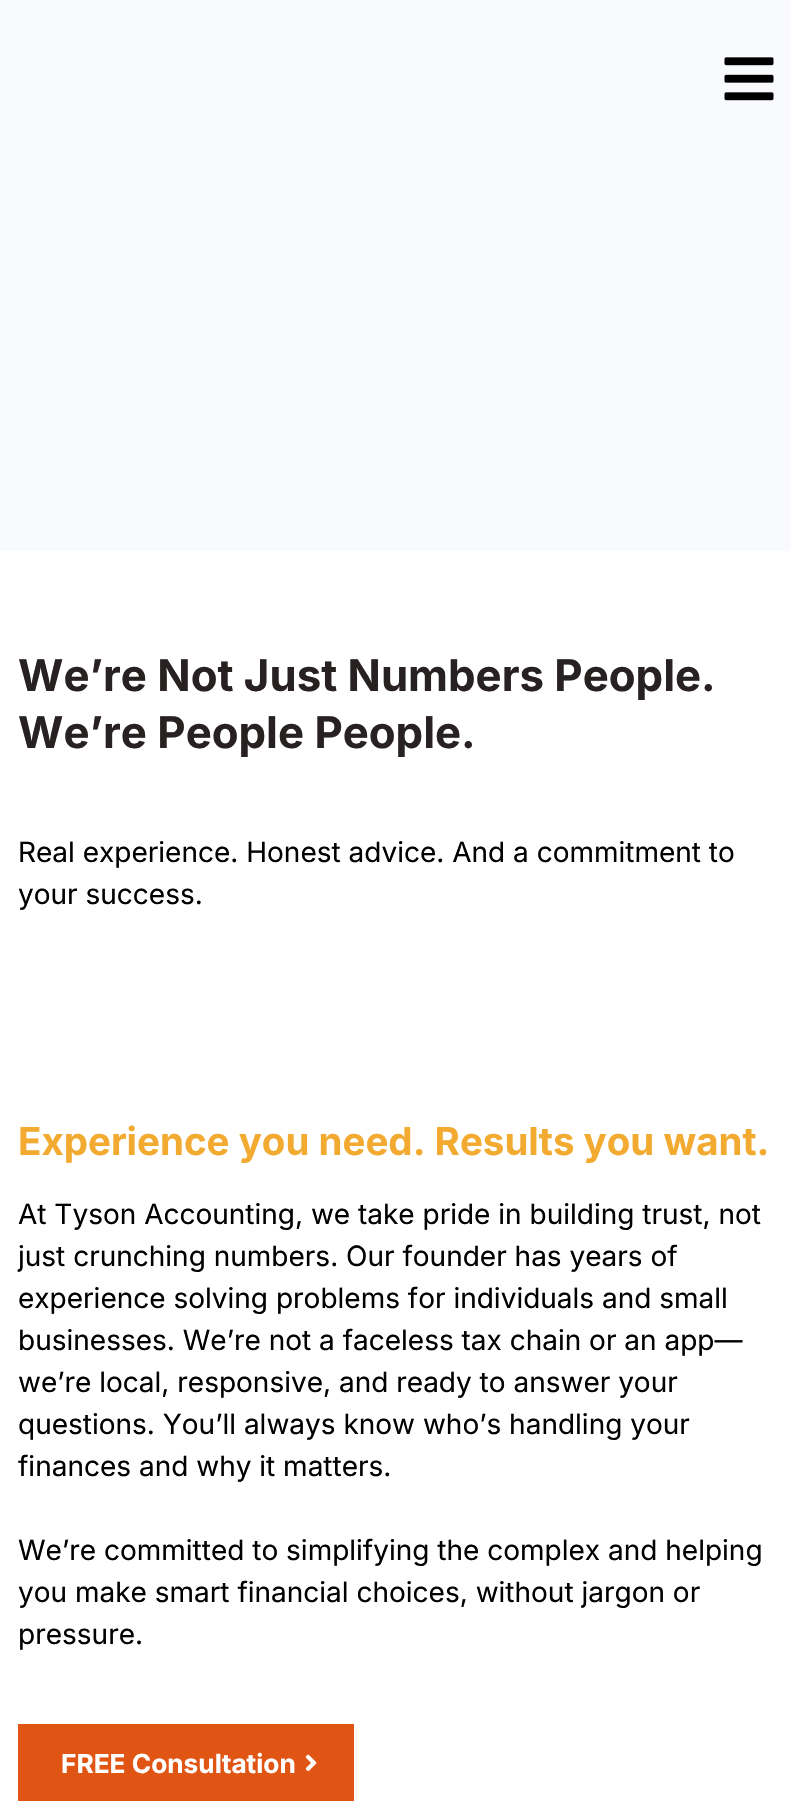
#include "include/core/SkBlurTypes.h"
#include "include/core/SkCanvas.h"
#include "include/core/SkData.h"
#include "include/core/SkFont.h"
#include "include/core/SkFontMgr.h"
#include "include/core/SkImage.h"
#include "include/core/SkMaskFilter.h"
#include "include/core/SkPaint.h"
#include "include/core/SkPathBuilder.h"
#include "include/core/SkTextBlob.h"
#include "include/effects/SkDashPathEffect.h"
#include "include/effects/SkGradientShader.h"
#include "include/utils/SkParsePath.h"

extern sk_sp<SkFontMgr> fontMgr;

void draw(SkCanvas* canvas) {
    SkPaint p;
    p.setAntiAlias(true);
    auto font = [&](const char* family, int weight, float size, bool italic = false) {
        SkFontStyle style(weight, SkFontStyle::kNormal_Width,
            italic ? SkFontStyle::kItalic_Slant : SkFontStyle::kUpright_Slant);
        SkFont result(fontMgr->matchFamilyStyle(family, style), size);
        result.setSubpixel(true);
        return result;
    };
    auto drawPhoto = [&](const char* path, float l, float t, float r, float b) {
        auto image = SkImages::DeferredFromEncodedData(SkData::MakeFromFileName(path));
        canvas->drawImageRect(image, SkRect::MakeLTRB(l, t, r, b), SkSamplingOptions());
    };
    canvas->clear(0xFFFFFFFF);
    p.setColor(0xFFF8FAFD);
    canvas->drawRect(SkRect::MakeLTRB(0, 0, 790, 551), p);
    drawPhoto("media/1.png", 724, 57, 774, 101);
    auto font1 = font("Inter", 700, 43.75f);
    p.setColor(0xFF282122);
    canvas->drawString("We’re Not Just Numbers People.", 18, 691, font1, p);
    canvas->drawString("We’re People People.", 18, 748, font1, p);
    auto font2 = font("Inter", 400, 28);
    p.setColor(0xFF000000);
    canvas->drawString("Real experience. Honest advice. And a commitment to", 18, 862, font2, p);
    canvas->drawString("your success.", 18, 904, font2, p);
    auto font3 = font("Inter", 700, 38.5f);
    p.setColor(0xFFF2AA31);
    canvas->drawString("Experience you need. Results you want.", 18, 1155, font3, p);
    p.setColor(0xFF000000);
    {
        const struct { const char* s; float x, y; } items[] = {
            {"At Tyson Accounting, we take pride in building trust, not", 18, 1224},
            {"just crunching numbers. Our founder has years of", 18, 1266},
            {"experience solving problems for individuals and small", 18, 1308},
            {"businesses. We’re not a faceless tax chain or an app—", 18, 1350},
            {"we’re local, responsive, and ready to answer your", 18, 1392},
            {"questions. You’ll always know who’s handling your", 18, 1434},
            {"finances and why it matters.", 18, 1476},
            {"We’re committed to simplifying the complex and helping", 18, 1560},
            {"you make smart financial choices, without jargon or", 18, 1602},
            {"pressure.", 18, 1644},
        };
        for (auto [s, x, y] : items) {
            canvas->drawString(s, x, y, font2, p);
        }
    }
    p.setColor(0xFFE05414);
    canvas->drawRect(SkRect::MakeLTRB(18, 1724, 354, 1801), p);
    auto font4 = font("Inter", 700, 26.25f);
    p.setColor(0xFFFFFFFF);
    canvas->drawString("FREE Consultation", 61, 1773, font4, p);
    drawPhoto("media/2.png", 305, 1754, 317, 1772);
}
